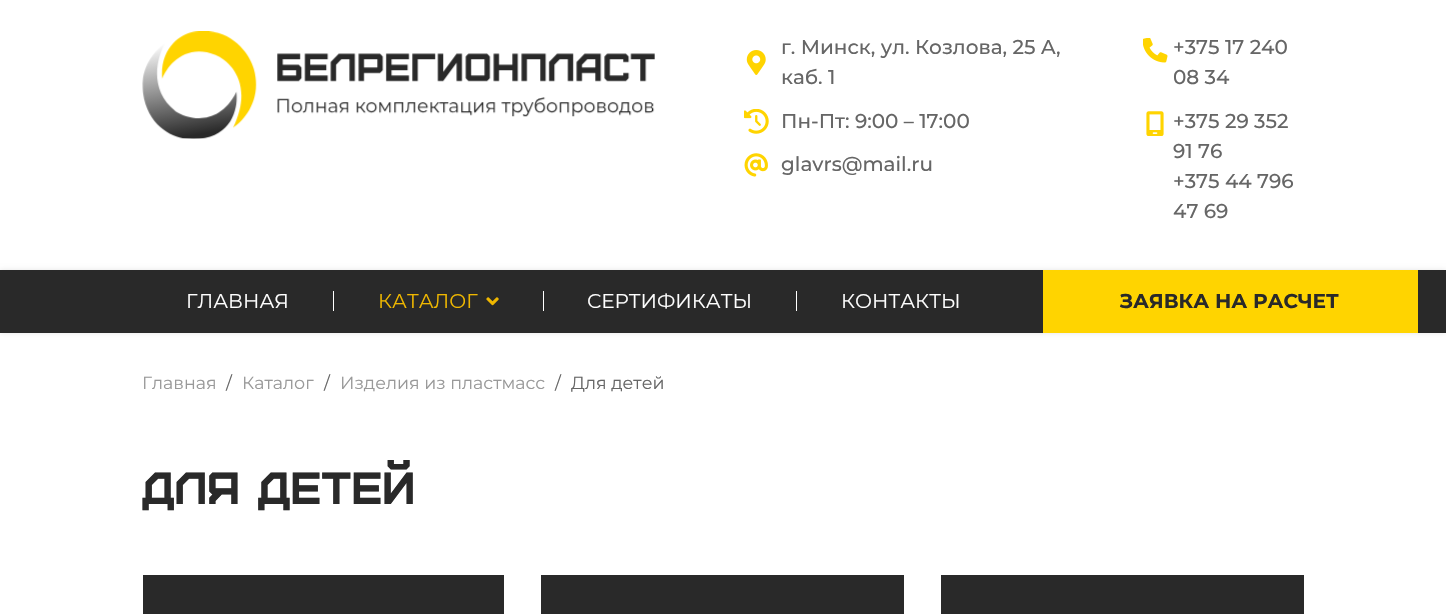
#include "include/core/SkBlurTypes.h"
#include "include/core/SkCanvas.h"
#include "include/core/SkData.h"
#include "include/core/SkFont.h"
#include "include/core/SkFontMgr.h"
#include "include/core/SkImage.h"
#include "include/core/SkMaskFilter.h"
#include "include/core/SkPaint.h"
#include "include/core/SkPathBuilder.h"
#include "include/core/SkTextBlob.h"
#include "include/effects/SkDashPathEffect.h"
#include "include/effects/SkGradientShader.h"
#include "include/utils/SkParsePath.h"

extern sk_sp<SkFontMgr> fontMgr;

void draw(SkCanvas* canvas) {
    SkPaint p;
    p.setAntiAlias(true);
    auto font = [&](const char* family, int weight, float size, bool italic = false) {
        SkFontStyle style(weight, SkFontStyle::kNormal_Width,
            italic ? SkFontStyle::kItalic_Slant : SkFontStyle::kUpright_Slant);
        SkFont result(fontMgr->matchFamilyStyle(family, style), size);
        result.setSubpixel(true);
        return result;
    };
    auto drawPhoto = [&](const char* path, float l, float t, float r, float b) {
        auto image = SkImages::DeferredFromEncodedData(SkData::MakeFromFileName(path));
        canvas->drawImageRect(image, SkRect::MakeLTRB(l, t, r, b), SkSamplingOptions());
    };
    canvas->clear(0xFFFFFFFF);
    drawPhoto("media/1.png", 142, 31, 655, 139);
    drawPhoto("media/2.png", 746, 50, 766, 75);
    auto font1 = font("Montserrat", 100, 20);
    p.setColor(0xFF666666);
    canvas->drawString("г. Минск, ул. Козлова, 25 А,", 781, 54, font1, p);
    canvas->drawString("каб. 1", 781, 84, font1, p);
    drawPhoto("media/3.png", 744, 109, 769, 134);
    canvas->drawString("Пн-Пт: 9:00 – 17:00", 781, 128, font1, p);
    drawPhoto("media/4.png", 744, 153, 768, 177);
    canvas->drawString("glavrs@mail.ru", 781, 171, font1, p);
    drawPhoto("media/5.png", 1143, 38, 1168, 63);
    canvas->drawString("+375 17 240", 1173, 54, font1, p);
    canvas->drawString("08 34", 1173, 84, font1, p);
    drawPhoto("media/6.png", 1146, 111, 1164, 136);
    {
        const struct { const char* s; float x, y; } items[] = {
            {"+375 29 352", 1173, 128},
            {"91 76", 1173, 158},
            {"+375 44 796", 1173, 188},
            {"47 69", 1173, 218},
        };
        for (auto [s, x, y] : items) {
            canvas->drawString(s, x, y, font1, p);
        }
    }
    p.setColor(0x1A000000);
    p.setMaskFilter(SkMaskFilter::MakeBlur(kNormal_SkBlurStyle, 2.5f));
    canvas->drawRect(SkRect::MakeLTRB(0, 270, 1446, 333), p);
    p.setMaskFilter(nullptr);
    p.setColor(0xFF292929);
    canvas->drawRect(SkRect::MakeLTRB(0, 270, 1446, 333), p);
    p.setColor(0xFFFFFFFF);
    canvas->drawRect(SkRect::MakeLTRB(333, 291, 334, 311), p);
    auto font2 = font("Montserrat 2", 100, 20);
    canvas->drawString("ГЛАВНАЯ", 186, 308, font2, p);
    canvas->drawRect(SkRect::MakeLTRB(543, 291, 544, 311), p);
    p.setColor(0xFFEFB700);
    canvas->drawString("КАТАЛОГ", 378, 308, font2, p);
    drawPhoto("media/7.png", 486, 297, 499, 306);
    p.setColor(0xFFFFFFFF);
    canvas->drawRect(SkRect::MakeLTRB(796, 291, 797, 311), p);
    canvas->drawString("СЕРТИФИКАТЫ", 587, 308, font2, p);
    canvas->drawString("КОНТАКТЫ", 841, 308, font2, p);
    p.setColor(0xFFFFD400);
    canvas->drawRect(SkRect::MakeLTRB(1043, 270, 1418, 333), p);
    auto font3 = font("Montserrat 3", 100, 20);
    p.setColor(0xFF292929);
    canvas->drawString("ЗАЯВКА НА РАСЧЕТ", 1120, 308, font3, p);
    auto font4 = font("Montserrat 2", 100, 17.5f);
    p.setColor(0xFF999999);
    canvas->drawString("Главная", 142, 389, font4, p);
    p.setColor(0xFF666666);
    canvas->drawString("/", 226, 389, font4, p);
    p.setColor(0xFF999999);
    canvas->drawString("Каталог", 242, 389, font4, p);
    p.setColor(0xFF666666);
    canvas->drawString("/", 324, 389, font4, p);
    p.setColor(0xFF999999);
    canvas->drawString("Изделия из пластмасс", 340, 389, font4, p);
    p.setColor(0xFF666666);
    canvas->drawString("/", 555, 389, font4, p);
    canvas->drawString("Для детей", 571, 389, font4, p);
    auto font5 = font("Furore", 400, 45);
    p.setColor(0xFF292929);
    canvas->drawString("Для детей", 142, 504, font5, p);
    {
        const struct { float l, t, r, b; SkColor color; } items[] = {
            {143, 575, 504, 614, 0xFF292929},
            {541, 575, 904, 614, 0xFF292929},
            {941, 575, 1304, 614, 0xFF292929},
        };
        for (auto [l, t, r, b, color] : items) {
            p.setColor(color);
            canvas->drawRect(SkRect::MakeLTRB(l, t, r, b), p);
        }
    }
}
